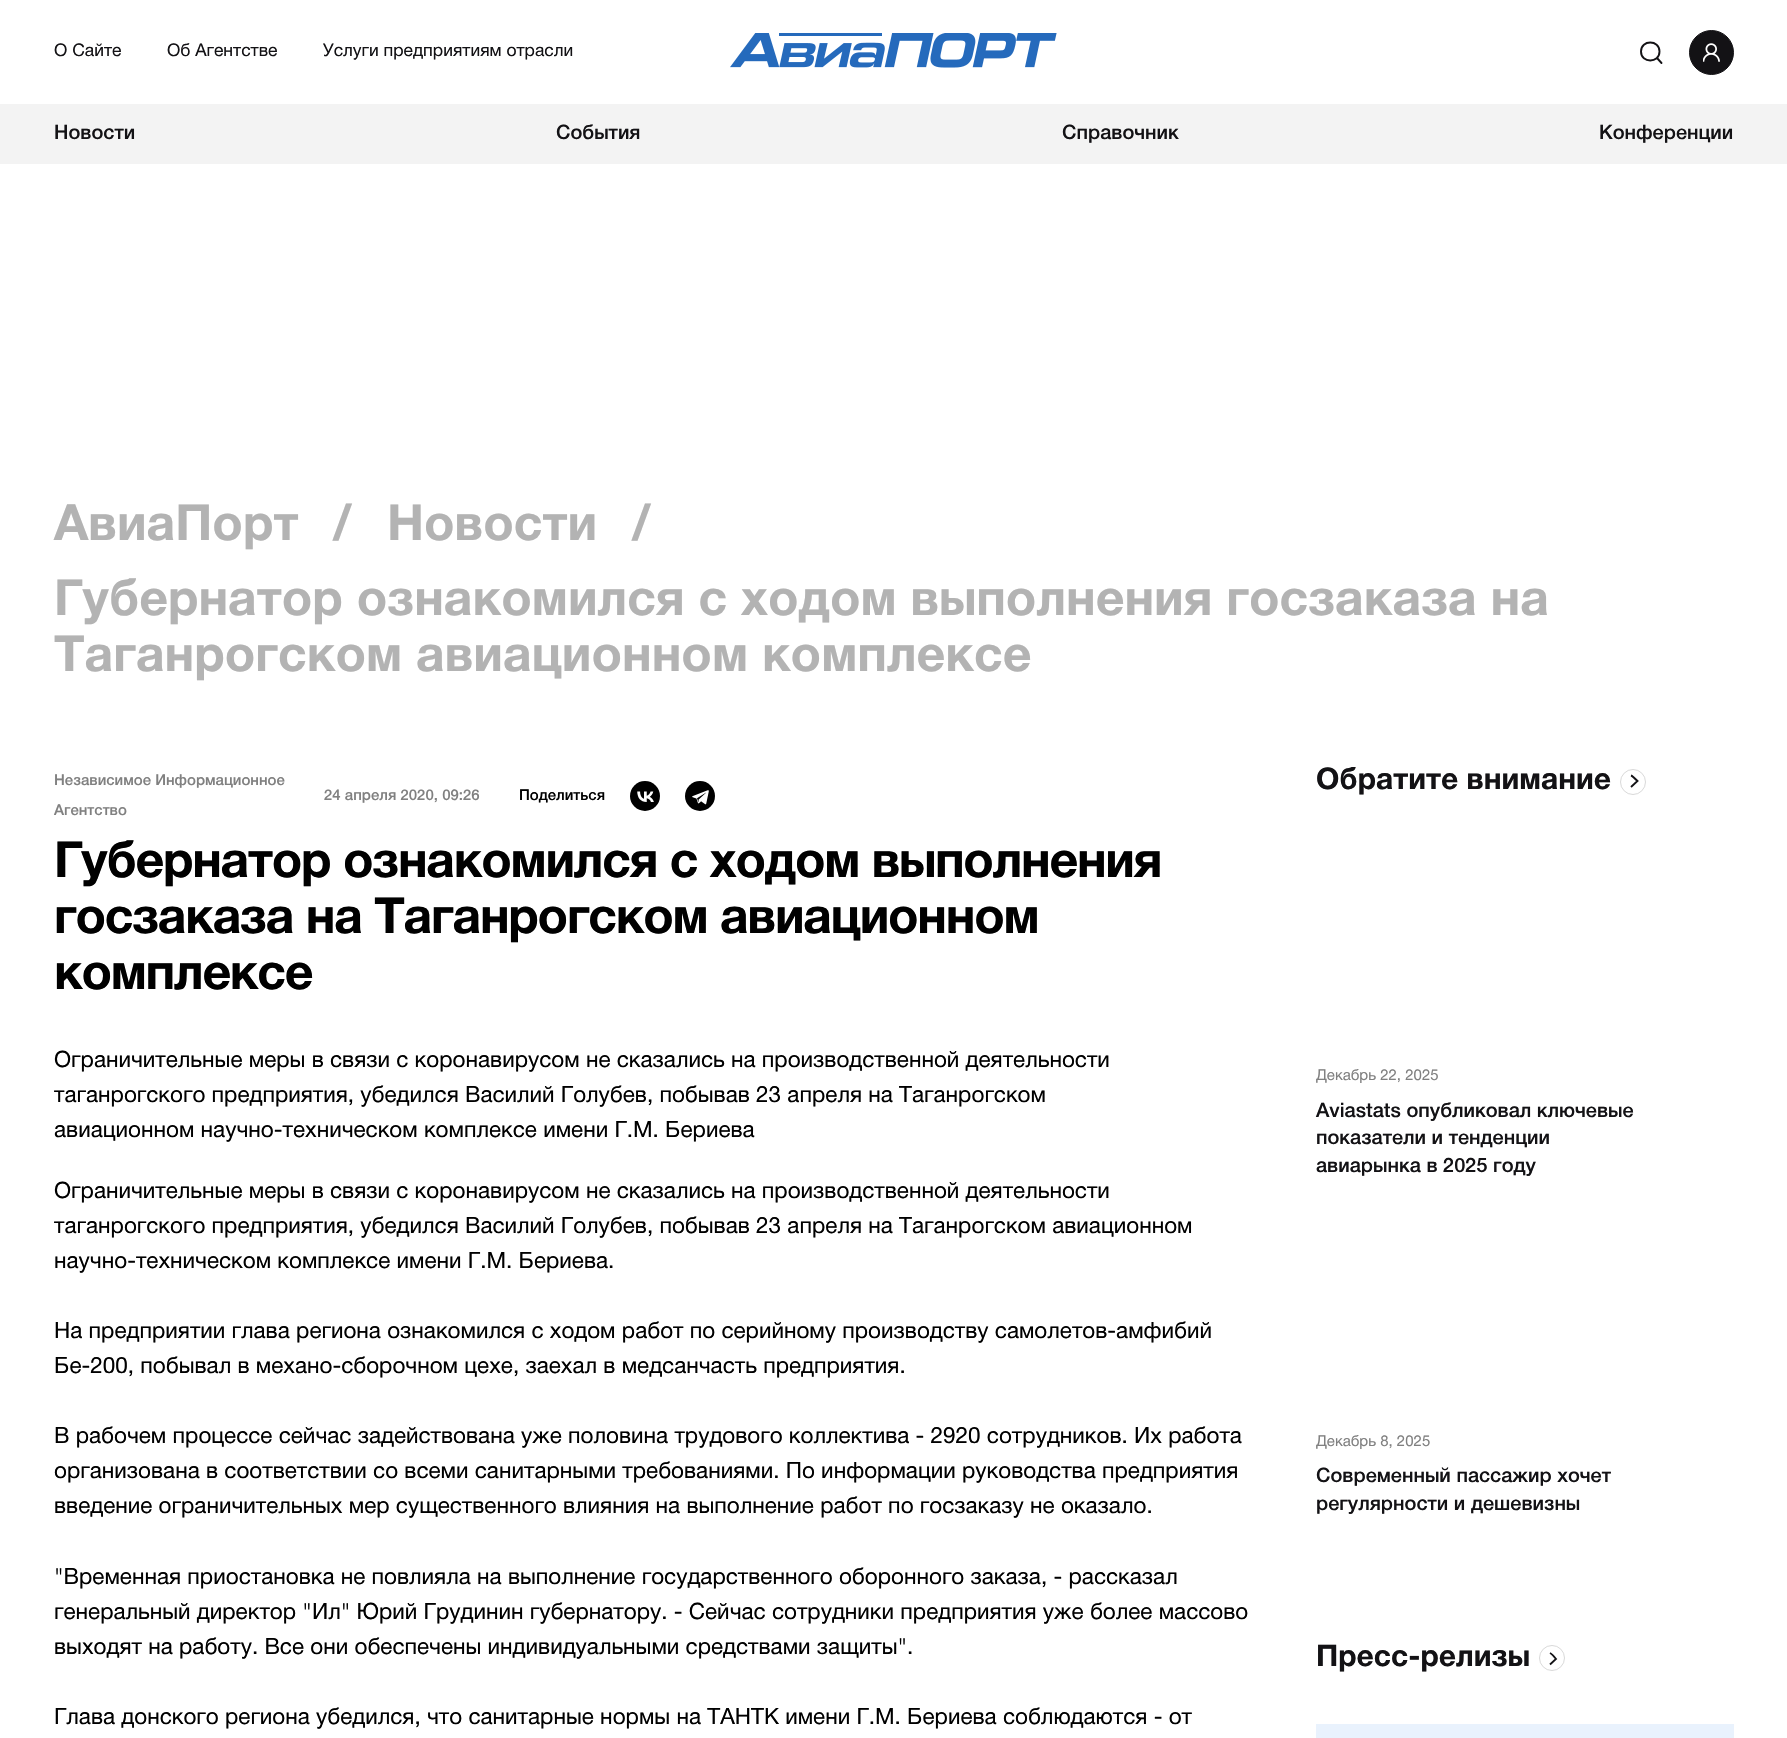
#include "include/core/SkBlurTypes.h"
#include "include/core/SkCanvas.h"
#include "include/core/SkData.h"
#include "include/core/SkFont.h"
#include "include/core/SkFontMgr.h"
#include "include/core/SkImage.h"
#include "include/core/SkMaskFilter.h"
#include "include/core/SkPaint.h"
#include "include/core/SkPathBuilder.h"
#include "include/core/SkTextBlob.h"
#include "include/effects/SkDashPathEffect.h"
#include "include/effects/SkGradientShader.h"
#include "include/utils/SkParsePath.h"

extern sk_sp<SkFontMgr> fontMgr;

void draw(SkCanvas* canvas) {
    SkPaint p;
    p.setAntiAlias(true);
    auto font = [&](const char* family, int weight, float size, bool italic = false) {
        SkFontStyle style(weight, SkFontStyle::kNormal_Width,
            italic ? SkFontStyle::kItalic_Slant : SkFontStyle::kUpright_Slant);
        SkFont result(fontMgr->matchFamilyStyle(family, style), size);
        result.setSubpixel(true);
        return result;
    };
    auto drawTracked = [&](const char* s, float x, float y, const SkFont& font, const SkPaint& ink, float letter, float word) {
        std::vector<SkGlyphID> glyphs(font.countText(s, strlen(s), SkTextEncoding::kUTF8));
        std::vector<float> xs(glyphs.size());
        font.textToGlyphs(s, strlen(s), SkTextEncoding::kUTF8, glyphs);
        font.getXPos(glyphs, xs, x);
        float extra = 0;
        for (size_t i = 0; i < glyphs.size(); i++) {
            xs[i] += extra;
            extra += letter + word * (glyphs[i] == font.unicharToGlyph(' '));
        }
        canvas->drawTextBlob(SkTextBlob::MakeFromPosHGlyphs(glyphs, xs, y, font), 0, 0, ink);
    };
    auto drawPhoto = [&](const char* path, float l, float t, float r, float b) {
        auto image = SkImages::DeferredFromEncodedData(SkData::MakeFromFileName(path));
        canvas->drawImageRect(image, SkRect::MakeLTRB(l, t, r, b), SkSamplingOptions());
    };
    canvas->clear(0xFFFFFFFF);
    auto font1 = font("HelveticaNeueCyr", 400, 17.5f);
    p.setColor(0xFF131215);
    {
        const struct { const char* s; float x, y; } items[] = {
            {"О Сайте", 54, 56},
            {"Об Агентстве", 167, 56},
            {"Услуги предприятиям отрасли", 323, 56},
        };
        for (auto [s, x, y] : items) {
            canvas->drawString(s, x, y, font1, p);
        }
    }
    drawPhoto("media/1.png", 730, 33, 1057, 68);
    p.setStyle(SkPaint::kStroke_Style);
    p.setStrokeWidth(1.9f);
    p.setStrokeCap(SkPaint::kRound_Cap);
    canvas->drawPath(SkPathBuilder().moveTo(1661.5f, 63).lineTo(1657, 58).moveTo(1659.5f, 51.5f).cubicTo(1659.5f, 63.5f, 1641, 63.5f, 1641, 51.5f).cubicTo(1641, 39.5f, 1659.5f, 39.5f, 1659.5f, 51.5f).close().detach(), p);
    p.setStyle(SkPaint::kFill_Style);
    canvas->drawCircle(1711.5f, 52.5f, 22, p);
    p.setStyle(SkPaint::kStroke_Style);
    p.setStrokeWidth(1);
    p.setStrokeCap(SkPaint::kButt_Cap);
    canvas->drawCircle(1711.5f, 52.5f, 22, p);
    drawPhoto("media/2.png", 1703, 43, 1720, 62);
    p.setStyle(SkPaint::kFill_Style);
    p.setColor(0xFFF3F3F3);
    canvas->drawRect(SkRect::MakeLTRB(0, 104, 1787, 164), p);
    auto font2 = font("HelveticaNeueCyr", 500, 20);
    p.setColor(0xFF131215);
    {
        const struct { const char* s; float x, y; } items[] = {
            {"Новости", 54, 139},
            {"События", 556, 139},
            {"Справочник", 1062, 139},
            {"Конференции", 1599, 139},
        };
        for (auto [s, x, y] : items) {
            canvas->drawString(s, x, y, font2, p);
        }
    }
    auto font3 = font("HelveticaNeueCyr", 700, 50);
    p.setColor(0xFFB3B3B3);
    {
        const struct { const char* s; float x, y; } items[] = {
            {"АвиаПорт", 54, 540},
            {"/", 333, 540},
            {"Новости", 387, 540},
            {"/", 632, 540},
            {"Губернатор ознакомился с ходом выполнения госзаказа на", 54, 615},
            {"Таганрогском авиационном комплексе", 54, 671},
        };
        for (auto [s, x, y] : items) {
            canvas->drawString(s, x, y, font3, p);
        }
    }
    auto font4 = font("HelveticaNeueCyr", 500, 15);
    p.setColor(0xFF808080);
    {
        const struct { const char* s; float x, y; } items[] = {
            {"Независимое Информационное", 54, 785},
            {"Агентство", 54, 815},
            {"24 апреля 2020, 09:26", 324, 800},
        };
        for (auto [s, x, y] : items) {
            canvas->drawString(s, x, y, font4, p);
        }
    }
    p.setColor(0xFF000000);
    canvas->drawString("Поделиться", 519, 800, font4, p);
    canvas->drawCircle(645, 796, 15, p);
    drawPhoto("media/3.png", 637, 791, 654, 802);
    canvas->drawCircle(700, 796, 15, p);
    drawPhoto("media/4.png", 692, 790, 709, 805);
    {
        const struct { const char* s; float x, y; } items[] = {
            {"Губернатор ознакомился с ходом выполнения", 54, 877},
            {"госзаказа на Таганрогском авиационном", 54, 933},
            {"комплексе", 54, 989},
        };
        for (auto [s, x, y] : items) {
            drawTracked(s, x, y, font3, p, -1.25f, 0);
        }
    }
    auto font5 = font("HelveticaNeueCyr", 400, 22.5f);
    {
        const struct { const char* s; float x, y; } items[] = {
            {"Ограничительные меры в связи с коронавирусом не сказались на производственной деятельности", 54, 1067},
            {"таганрогского предприятия, убедился Василий Голубев, побывав 23 апреля на Таганрогском", 54, 1102},
            {"авиационном научно-техническом комплексе имени Г.М. Бериева", 54, 1137},
            {"Ограничительные меры в связи с коронавирусом не сказались на производственной деятельности", 54, 1198},
            {"таганрогского предприятия, убедился Василий Голубев, побывав 23 апреля на Таганрогском авиационном", 54, 1233},
            {"научно-техническом комплексе имени Г.М. Бериева.", 54, 1268},
            {"На предприятии глава региона ознакомился с ходом работ по серийному производству самолетов-амфибий", 54, 1338},
            {"Бе-200, побывал в механо-сборочном цехе, заехал в медсанчасть предприятия.", 54, 1373},
            {"В рабочем процессе сейчас задействована уже половина трудового коллектива - 2920 сотрудников. Их работа", 54, 1443},
            {"организована в соответствии со всеми санитарными требованиями. По информации руководства предприятия", 54, 1478},
            {"введение ограничительных мер существенного влияния на выполнение работ по госзаказу не оказало.", 54, 1513},
            {"\"Временная приостановка не повлияла на выполнение государственного оборонного заказа, - рассказал", 54, 1584},
            {"генеральный директор \"Ил\" Юрий Грудинин губернатору. - Сейчас сотрудники предприятия уже более массово", 54, 1619},
            {"выходят на работу. Все они обеспечены индивидуальными средствами защиты\".", 54, 1654},
            {"Глава донского региона убедился, что санитарные нормы на ТАНТК имени Г.М. Бериева соблюдаются - от", 54, 1724},
        };
        for (auto [s, x, y] : items) {
            canvas->drawString(s, x, y, font5, p);
        }
    }
    auto font6 = font("HelveticaNeueCyr", 700, 30);
    p.setColor(0xFF131215);
    canvas->drawString("Обратите внимание", 1316, 789, font6, p);
    p.setStyle(SkPaint::kStroke_Style);
    p.setColor(0xFFD9D9D9);
    canvas->drawCircle(1633, 782, 12.5f, p);
    p.setStrokeWidth(1.9f);
    p.setColor(0xFF131215);
    canvas->drawPath(SkPathBuilder().moveTo(1631, 775.5f).cubicTo(1632.5f, 776, 1636, 779.5f, 1637.5f, 781).lineTo(1631, 787).detach(), p);
    auto font7 = font("HelveticaNeueCyr", 400, 15);
    p.setStyle(SkPaint::kFill_Style);
    p.setColor(0xFF808080);
    canvas->drawString("Декабрь 22, 2025", 1316, 1080, font7, p);
    p.setColor(0xFF131215);
    {
        const struct { const char* s; float x, y; } items[] = {
            {"Aviastats опубликовал ключевые", 1316, 1117},
            {"показатели и тенденции", 1316, 1144},
            {"авиарынка в 2025 году", 1316, 1172},
        };
        for (auto [s, x, y] : items) {
            canvas->drawString(s, x, y, font2, p);
        }
    }
    p.setColor(0xFF808080);
    canvas->drawString("Декабрь 8, 2025", 1316, 1446, font7, p);
    p.setColor(0xFF131215);
    canvas->drawString("Современный пассажир хочет", 1316, 1482, font2, p);
    canvas->drawString("регулярности и дешевизны", 1316, 1510, font2, p);
    canvas->drawString("Пресс-релизы", 1316, 1666, font6, p);
    p.setStyle(SkPaint::kStroke_Style);
    p.setStrokeWidth(1);
    p.setColor(0xFFD9D9D9);
    canvas->drawCircle(1552, 1658, 12.5f, p);
    p.setStrokeWidth(1.9f);
    p.setColor(0xFF131215);
    canvas->drawPath(SkPathBuilder().moveTo(1550, 1653).cubicTo(1551, 1653.5f, 1554.5f, 1657, 1556, 1659).lineTo(1550, 1664.5f).detach(), p);
    p.setStyle(SkPaint::kFill_Style);
    p.setColor(0xFFE9F2FD);
    canvas->drawRect(SkRect::MakeLTRB(1316, 1724, 1734, 1738), p);
}
